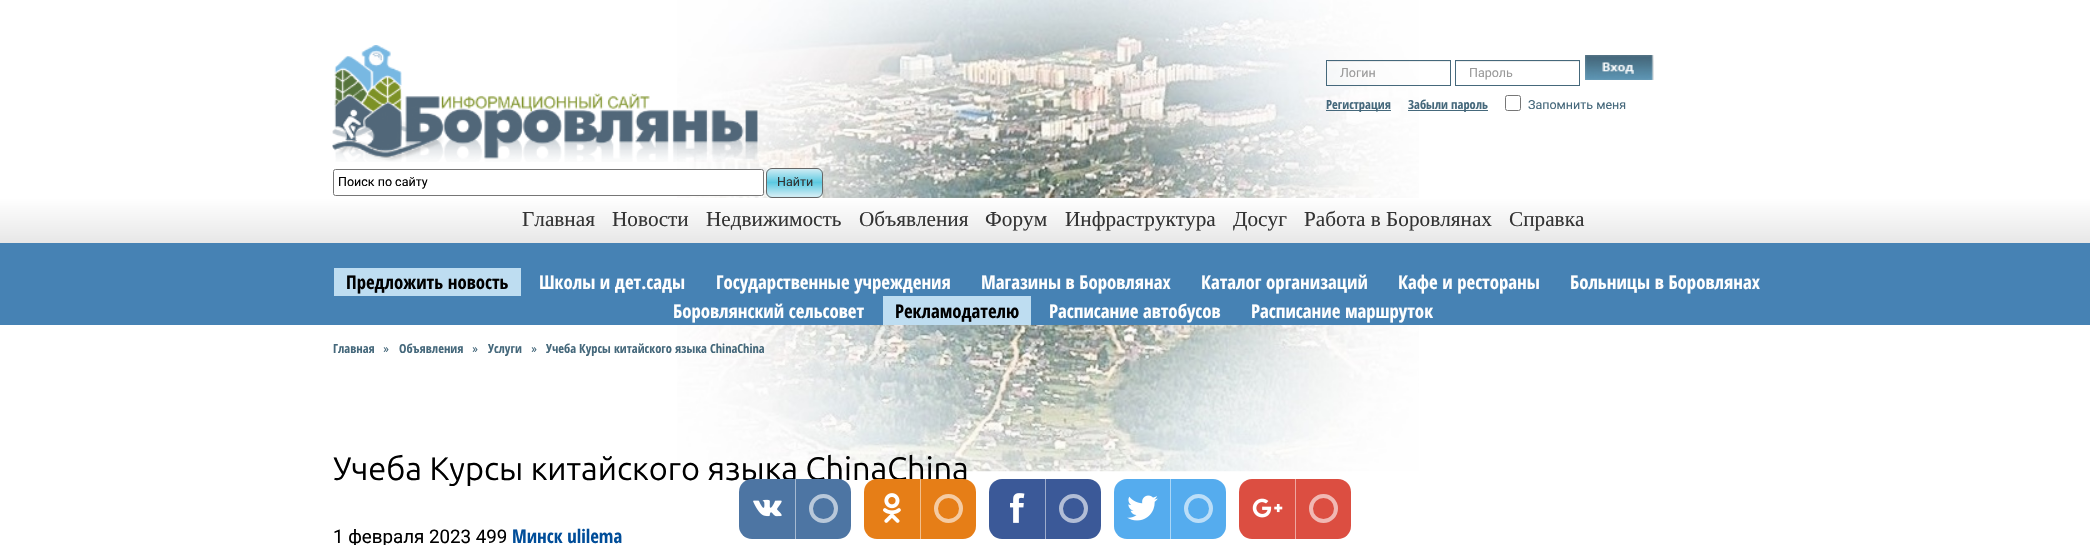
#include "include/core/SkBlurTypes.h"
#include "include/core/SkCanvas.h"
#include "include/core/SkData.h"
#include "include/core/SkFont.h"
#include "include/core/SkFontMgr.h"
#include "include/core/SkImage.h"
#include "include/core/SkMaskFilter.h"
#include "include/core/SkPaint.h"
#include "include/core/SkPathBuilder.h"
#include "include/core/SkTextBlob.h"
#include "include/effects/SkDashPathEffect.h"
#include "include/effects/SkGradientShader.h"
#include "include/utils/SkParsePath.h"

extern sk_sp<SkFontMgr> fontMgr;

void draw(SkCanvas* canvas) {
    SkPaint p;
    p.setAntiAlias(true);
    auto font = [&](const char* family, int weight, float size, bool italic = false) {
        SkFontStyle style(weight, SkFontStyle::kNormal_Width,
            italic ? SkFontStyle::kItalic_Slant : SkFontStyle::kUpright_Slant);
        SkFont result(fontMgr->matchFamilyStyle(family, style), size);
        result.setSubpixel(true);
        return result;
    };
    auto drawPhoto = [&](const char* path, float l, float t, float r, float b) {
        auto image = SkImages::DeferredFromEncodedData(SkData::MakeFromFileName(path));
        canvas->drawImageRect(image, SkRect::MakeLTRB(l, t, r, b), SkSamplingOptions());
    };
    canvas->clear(0xFFFFFFFF);
    drawPhoto("media/1.png", 677, 0, 1419, 472);
    drawPhoto("media/2.png", 332, 45, 758, 162);
    p.setColor(0x12000000);
    canvas->drawRect(SkRect::MakeLTRB(1328, 61, 1450, 62), p);
    p.setStyle(SkPaint::kStroke_Style);
    p.setStrokeWidth(1);
    p.setColor(0xFF45687B);
    canvas->drawRect(SkRect::MakeLTRB(1326.5f, 60.5f, 1450.5f, 85.5f), p);
    auto font1 = font("Roboto", 400, 12.5f);
    p.setStyle(SkPaint::kFill_Style);
    p.setColor(0xFF999999);
    canvas->drawString("Логин", 1340, 77, font1, p);
    p.setColor(0xFFECECEC);
    canvas->drawRect(SkRect::MakeLTRB(1456, 61, 1579, 62), p);
    p.setStyle(SkPaint::kStroke_Style);
    p.setColor(0xFF45687B);
    canvas->drawRect(SkRect::MakeLTRB(1455.5f, 60.5f, 1579.5f, 85.5f), p);
    p.setStyle(SkPaint::kFill_Style);
    p.setColor(0xFF999999);
    canvas->drawString("Пароль", 1469, 77, font1, p);
    p.setColor(0xFFEFEFEF);
    canvas->drawRect(SkRect::MakeLTRB(1585, 55, 1654, 80), p);
    drawPhoto("media/3.png", 1585, 55, 1654, 80);
    p.setColor(0xFF45687B);
    canvas->drawRect(SkRect::MakeLTRB(1326, 110, 1391, 111), p);
    auto font2 = font("Open Sans Condensed", 700, 12.5f);
    canvas->drawString("Регистрация", 1326, 109, font2, p);
    canvas->drawRect(SkRect::MakeLTRB(1408, 110, 1488, 111), p);
    canvas->drawString("Забыли пароль", 1408, 109, font2, p);
    p.setStyle(SkPaint::kStroke_Style);
    p.setColor(0xFF767676);
    canvas->drawRoundRect(SkRect::MakeLTRB(1505.5f, 95.5f, 1520.5f, 110.5f), 2, 2, p);
    p.setStyle(SkPaint::kFill_Style);
    p.setColor(0xFF45687B);
    canvas->drawString("Запомнить меня", 1528, 109, font1, p);
    p.setColor(0xFFFFFFFF);
    canvas->drawRoundRect(SkRect::MakeLTRB(333.5f, 169.5f, 763.5f, 195.5f), 2, 2, p);
    p.setStyle(SkPaint::kStroke_Style);
    p.setColor(0xFF767676);
    canvas->drawRoundRect(SkRect::MakeLTRB(333.5f, 169.5f, 763.5f, 195.5f), 2, 2, p);
    p.setStyle(SkPaint::kFill_Style);
    p.setColor(0xFF000000);
    canvas->drawString("Поиск по сайту", 338, 186, font1, p);
    canvas->save();
    canvas->clipPath(SkPathBuilder().moveTo(772, 168).lineTo(817, 168).cubicTo(820.5f, 168, 823, 170.5f, 823, 174).lineTo(823, 192).cubicTo(823, 195.5f, 820.5f, 198, 817, 198).lineTo(772, 198).cubicTo(768.5f, 198, 766, 195.5f, 766, 192).lineTo(766, 174).cubicTo(766, 170.5f, 768.5f, 168, 772, 168).close().detach(), true);
    {
        const SkColor colors[] = {0xFFD0ECF4, 0xFF5BC9E1, 0xFFD0ECF4};
        const float stops[] = {0, 0.5f, 1};
        const SkPoint ends[] = {{768, 169}, {768, 196}};
        p.setShader(SkGradientShader::MakeLinear(ends, colors, stops, 3, SkTileMode::kClamp));
        p.setAlpha(255);
    }
    canvas->drawRect(SkRect::MakeLTRB(766, 169, 823, 196), p);
    {
        const SkColor colors[] = {0xFFD0ECF4, 0xFF5BC9E1, 0xFFD0ECF4};
        const float stops[] = {0, 0.5f, 1};
        const SkPoint ends[] = {{768, 196}, {768, 224}};
        p.setShader(SkGradientShader::MakeLinear(ends, colors, stops, 3, SkTileMode::kClamp));
        p.setAlpha(255);
    }
    canvas->drawRect(SkRect::MakeLTRB(766, 196, 823, 198), p);
    canvas->restore();
    p.setStyle(SkPaint::kStroke_Style);
    p.setShader(nullptr);
    p.setColor(0xFF666666);
    canvas->drawRoundRect(SkRect::MakeLTRB(766.5f, 168.5f, 822.5f, 197.5f), 5.5f, 5.5f, p);
    p.setStyle(SkPaint::kFill_Style);
    p.setColor(0xFF333333);
    canvas->drawString("Найти", 777, 186, font1, p);
    {
        const SkColor colors[] = {0xFFE7E7E7, 0xFFFFFFFF};
        const float stops[] = {0, 1};
        const SkPoint ends[] = {{1045, 243}, {1045, 198}};
        p.setShader(SkGradientShader::MakeLinear(ends, colors, stops, 2, SkTileMode::kClamp));
        p.setAlpha(255);
    }
    canvas->drawRect(SkRect::MakeLTRB(0, 198, 2090, 243), p);
    auto font3 = font("Liberation Serif", 400, 21.25f);
    p.setShader(nullptr);
    p.setColor(0xFF333333);
    {
        const struct { const char* s; float x, y; } items[] = {
            {"Главная", 522, 226},
            {"Новости", 612, 226},
            {"Недвижимость", 706, 226},
            {"Объявления", 859, 226},
            {"Форум", 985, 226},
            {"Инфраструктура", 1065, 226},
            {"Досуг", 1233, 226},
            {"Работа в Боровлянах", 1304, 226},
            {"Справка", 1509, 226},
        };
        for (auto [s, x, y] : items) {
            canvas->drawString(s, x, y, font3, p);
        }
    }
    p.setColor(0xFF4682B4);
    canvas->drawRect(SkRect::MakeLTRB(0, 243, 2090, 325), p);
    p.setColor(0xFFBEDDF1);
    canvas->drawRect(SkRect::MakeLTRB(334, 268, 521, 296), p);
    auto font4 = font("Open Sans Condensed", 700, 18.75f);
    p.setColor(0xFF000000);
    canvas->drawString("Предложить новость", 346, 289, font4, p);
    p.setColor(0xFFFFFFFF);
    {
        const struct { const char* s; float x, y; } items[] = {
            {"Школы и дет.сады", 539, 289},
            {"Государственные учреждения", 716, 289},
            {"Магазины в Боровлянах", 981, 289},
            {"Каталог организаций", 1201, 289},
            {"Кафе и рестораны", 1398, 289},
            {"Больницы в Боровлянах", 1570, 289},
            {"Боровлянский сельсовет", 673, 318},
        };
        for (auto [s, x, y] : items) {
            canvas->drawString(s, x, y, font4, p);
        }
    }
    p.setColor(0xFFBEDDF1);
    canvas->drawRect(SkRect::MakeLTRB(883, 296, 1031, 325), p);
    p.setColor(0xFF000000);
    canvas->drawString("Рекламодателю", 895, 318, font4, p);
    p.setColor(0xFFFFFFFF);
    canvas->drawString("Расписание автобусов", 1049, 318, font4, p);
    canvas->drawString("Расписание маршруток", 1251, 318, font4, p);
    p.setColor(0xFF45687B);
    canvas->drawString("Главная", 333, 353, font2, p);
    canvas->drawString("»", 383, 353, font1, p);
    canvas->drawString("Объявления", 399, 353, font2, p);
    canvas->drawString("»", 472, 353, font1, p);
    canvas->drawString("Услуги", 488, 353, font2, p);
    canvas->drawString("»", 531, 353, font1, p);
    canvas->drawString("Учеба Курсы китайского языка ChinaChina", 546, 353, font2, p);
    auto font5 = font("Ubuntu", 400, 32.5f);
    p.setColor(0xFF000000);
    canvas->drawString("Учеба Курсы китайского языка ChinaChina", 333, 480, font5, p);
    auto font6 = font("Roboto", 400, 18.75f);
    canvas->drawString("1 февраля 2023 499", 333, 543, font6, p);
    p.setColor(0xFF004D99);
    canvas->drawString("Минск ulilema", 512, 543, font4, p);
    p.setColor(0xFF4D75A3);
    canvas->drawRoundRect(SkRect::MakeLTRB(739, 479, 851, 539), 13, 13, p);
    drawPhoto("media/4.png", 753, 499, 782, 517);
    p.setColor(0xFFA6BAD1);
    canvas->drawRect(SkRect::MakeLTRB(795, 479, 796, 539), p);
    p.setStyle(SkPaint::kStroke_Style);
    p.setStrokeWidth(4);
    p.setColor(0xFFB8C8DA);
    canvas->drawCircle(823.5f, 508.5f, 12.5f, p);
    p.setStyle(SkPaint::kFill_Style);
    p.setColor(0xFFE67E17);
    canvas->drawRoundRect(SkRect::MakeLTRB(864, 479, 976, 539), 13, 13, p);
    drawPhoto("media/5.png", 883, 493, 901, 523);
    p.setColor(0xFFF3BF8B);
    canvas->drawRect(SkRect::MakeLTRB(920, 479, 921, 539), p);
    p.setStyle(SkPaint::kStroke_Style);
    p.setColor(0xFFF5CBA2);
    canvas->drawCircle(948.5f, 508.5f, 12.5f, p);
    p.setStyle(SkPaint::kFill_Style);
    p.setColor(0xFF3B5998);
    canvas->drawRoundRect(SkRect::MakeLTRB(989, 479, 1101, 539), 13, 13, p);
    drawPhoto("media/6.png", 1010, 493, 1025, 523);
    p.setColor(0xFF9DACCC);
    canvas->drawRect(SkRect::MakeLTRB(1045, 479, 1046, 539), p);
    p.setStyle(SkPaint::kStroke_Style);
    p.setColor(0xFFB1BDD6);
    canvas->drawCircle(1073.5f, 508.5f, 12.5f, p);
    p.setStyle(SkPaint::kFill_Style);
    p.setColor(0xFF55ACEE);
    canvas->drawRoundRect(SkRect::MakeLTRB(1114, 479, 1226, 539), 13, 13, p);
    drawPhoto("media/7.png", 1127, 495, 1158, 521);
    p.setColor(0xFFAAD6F7);
    canvas->drawRect(SkRect::MakeLTRB(1170, 479, 1171, 539), p);
    p.setStyle(SkPaint::kStroke_Style);
    p.setColor(0xFFBBDEF8);
    canvas->drawCircle(1198.5f, 508.5f, 12.5f, p);
    p.setStyle(SkPaint::kFill_Style);
    p.setColor(0xFFDC4E41);
    canvas->drawRoundRect(SkRect::MakeLTRB(1239, 479, 1351, 539), 13, 13, p);
    drawPhoto("media/8.png", 1252, 498, 1283, 518);
    p.setColor(0xFFEEA7A0);
    canvas->drawRect(SkRect::MakeLTRB(1295, 479, 1296, 539), p);
    p.setStyle(SkPaint::kStroke_Style);
    p.setColor(0xFFF1B8B3);
    canvas->drawCircle(1323.5f, 508.5f, 12.5f, p);
}
